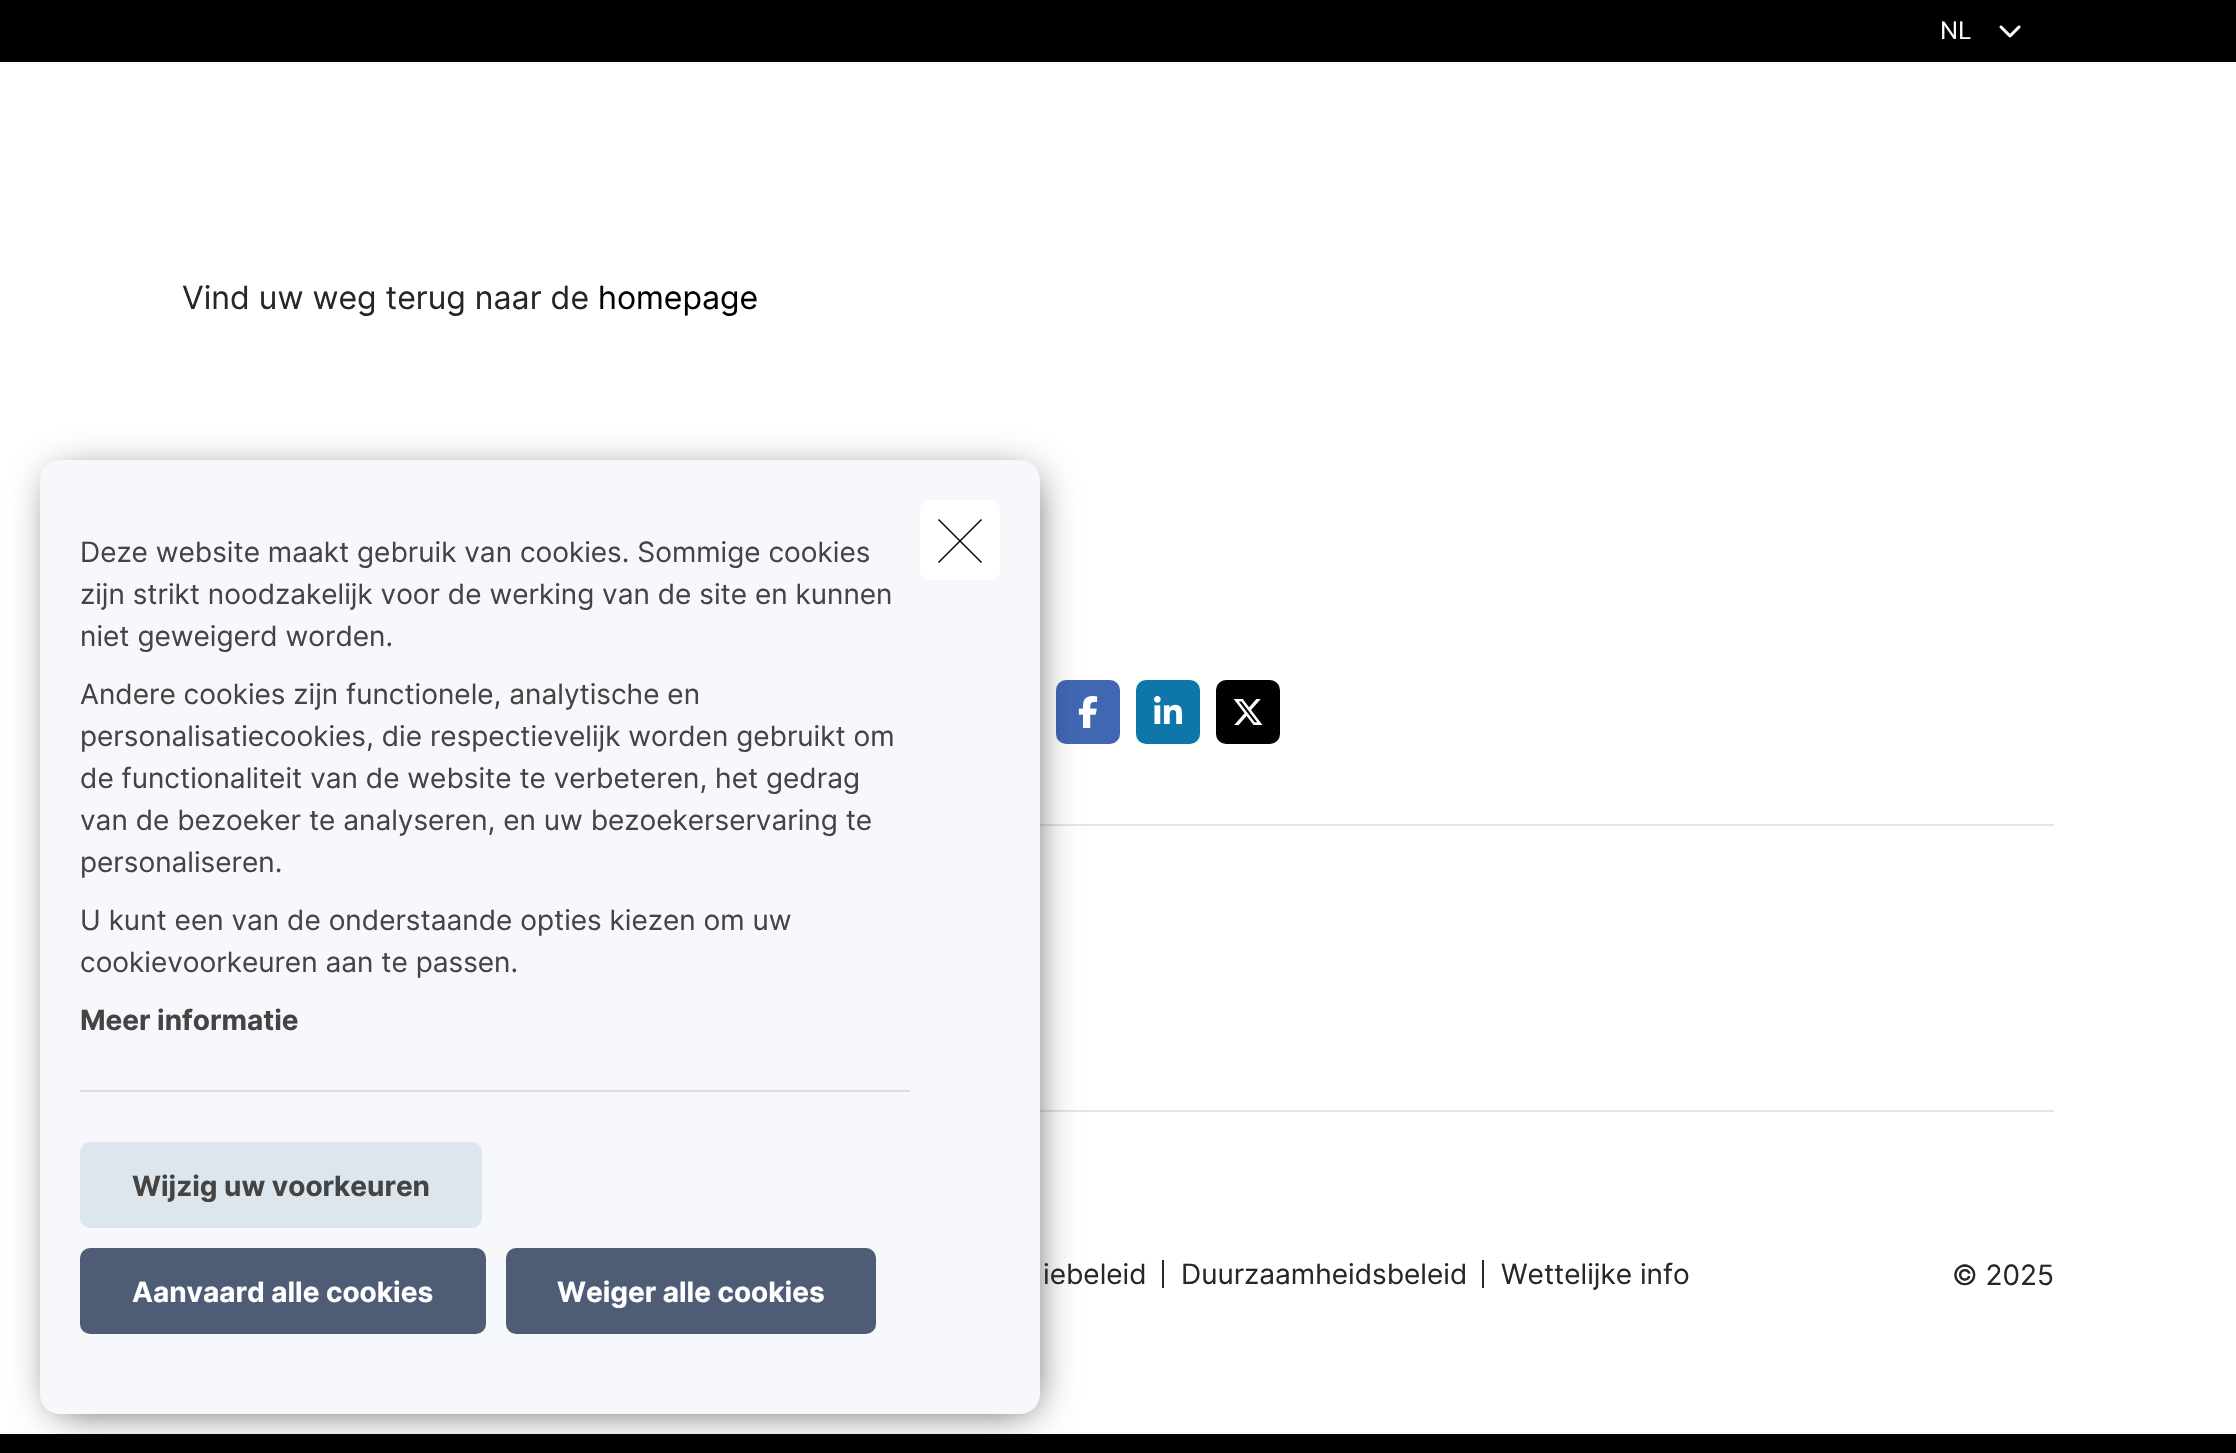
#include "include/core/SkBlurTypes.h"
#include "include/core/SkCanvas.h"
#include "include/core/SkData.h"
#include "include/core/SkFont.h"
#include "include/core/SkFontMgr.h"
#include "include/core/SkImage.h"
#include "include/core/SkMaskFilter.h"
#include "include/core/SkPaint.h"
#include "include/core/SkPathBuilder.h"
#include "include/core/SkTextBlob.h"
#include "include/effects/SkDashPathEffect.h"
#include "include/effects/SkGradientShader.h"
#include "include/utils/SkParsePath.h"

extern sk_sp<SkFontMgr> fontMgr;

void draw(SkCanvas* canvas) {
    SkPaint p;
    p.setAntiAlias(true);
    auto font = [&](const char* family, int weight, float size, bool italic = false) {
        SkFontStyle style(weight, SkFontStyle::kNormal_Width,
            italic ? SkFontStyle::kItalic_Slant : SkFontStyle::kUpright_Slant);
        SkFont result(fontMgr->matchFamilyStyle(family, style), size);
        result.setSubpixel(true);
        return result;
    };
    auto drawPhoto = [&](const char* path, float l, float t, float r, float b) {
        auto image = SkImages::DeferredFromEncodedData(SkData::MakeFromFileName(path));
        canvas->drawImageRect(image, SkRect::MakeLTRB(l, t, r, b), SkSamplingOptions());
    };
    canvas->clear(0xFFFFFFFF);
    p.setColor(0xFF000000);
    canvas->drawRect(SkRect::MakeLTRB(0, 0, 2236, 62), p);
    auto font1 = font("Inter", 400, 24);
    p.setColor(0xFFFFFFFF);
    canvas->drawString("NL", 1940, 39, font1, p);
    drawPhoto("media/1.png", 1999, 25, 2021, 38);
    auto font2 = font("Inter", 400, 32);
    p.setColor(0xFF272727);
    canvas->drawString("Vind uw weg terug naar de", 182, 309, font2, p);
    p.setColor(0xFF000000);
    canvas->drawString("homepage", 598, 309, font2, p);
    p.setColor(0xFF4267B2);
    canvas->drawRoundRect(SkRect::MakeLTRB(1056, 680, 1120, 744), 10, 10, p);
    drawPhoto("media/2.png", 1078, 696, 1098, 728);
    p.setColor(0xFF0E76A8);
    canvas->drawRoundRect(SkRect::MakeLTRB(1136, 680, 1200, 744), 10, 10, p);
    drawPhoto("media/3.png", 1154, 696, 1182, 724);
    p.setColor(0xFF000000);
    canvas->drawRoundRect(SkRect::MakeLTRB(1216, 680, 1280, 744), 10, 10, p);
    drawPhoto("media/4.png", 1233, 699, 1263, 725);
    {
        const struct { float l, t, r, b; SkColor color; } items[] = {
            {0, 1434, 2236, 1453, 0xFF000000},
            {1040, 824, 2054, 826, 0xFFDEE5EC},
            {1040, 1110, 2054, 1112, 0xFFDEE5EC},
        };
        for (auto [l, t, r, b, color] : items) {
            p.setColor(color);
            canvas->drawRect(SkRect::MakeLTRB(l, t, r, b), p);
        }
    }
    p.setColor(0xBF000000);
    p.setMaskFilter(SkMaskFilter::MakeBlur(kNormal_SkBlurStyle, 21));
    canvas->drawRoundRect(SkRect::MakeLTRB(56, 478, 1032, 1408), 8, 8, p);
    p.setMaskFilter(nullptr);
    p.setColor(0xFFF6F8FC);
    canvas->drawRoundRect(SkRect::MakeLTRB(40, 460, 1040, 1414), 20, 20, p);
    p.setColor(0xFFDDDDDD);
    canvas->drawRect(SkRect::MakeLTRB(80, 1090, 910, 1092), p);
    auto font3 = font("Inter", 400, 28);
    p.setColor(0xFF444444);
    {
        const struct { const char* s; float x, y; } items[] = {
            {"Deze website maakt gebruik van cookies. Sommige cookies", 80, 562},
            {"zijn strikt noodzakelijk voor de werking van de site en kunnen", 80, 604},
            {"niet geweigerd worden.", 80, 646},
            {"Andere cookies zijn functionele, analytische en", 80, 704},
            {"personalisatiecookies, die respectievelijk worden gebruikt om", 80, 746},
            {"de functionaliteit van de website te verbeteren, het gedrag", 80, 788},
            {"van de bezoeker te analyseren, en uw bezoekerservaring te", 80, 830},
            {"personaliseren.", 80, 872},
            {"U kunt een van de onderstaande opties kiezen om uw", 80, 930},
            {"cookievoorkeuren aan te passen.", 80, 972},
        };
        for (auto [s, x, y] : items) {
            canvas->drawString(s, x, y, font3, p);
        }
    }
    auto font4 = font("Inter", 700, 28);
    canvas->drawString("Meer informatie", 80, 1030, font4, p);
    p.setColor(0xFFDDE5ED);
    canvas->drawRoundRect(SkRect::MakeLTRB(80, 1142, 482, 1228), 10, 10, p);
    p.setColor(0xFF444444);
    canvas->drawString("Wijzig uw voorkeuren", 132, 1196, font4, p);
    p.setColor(0xFF4E5C76);
    canvas->drawRoundRect(SkRect::MakeLTRB(80, 1248, 486, 1334), 10, 10, p);
    p.setColor(0xFFFFFFFF);
    canvas->drawString("Aanvaard alle cookies", 132, 1302, font4, p);
    p.setColor(0xFF4E5C76);
    canvas->drawRoundRect(SkRect::MakeLTRB(506, 1248, 876, 1334), 10, 10, p);
    p.setColor(0xFFFFFFFF);
    canvas->drawString("Weiger alle cookies", 557, 1302, font4, p);
    canvas->drawRoundRect(SkRect::MakeLTRB(920, 500, 1000, 580), 10, 10, p);
    p.setColor(0xFF000000);
    canvas->drawPath(SkPathBuilder().moveTo(939, 519).lineTo(982, 562).lineTo(981, 563).lineTo(938, 520).close().detach(), p);
    canvas->drawPath(SkPathBuilder().moveTo(938, 562).lineTo(981, 519).lineTo(982, 520).lineTo(939, 563).close().detach(), p);
    p.setColor(0xFF272727);
    canvas->drawString("iebeleid", 1043, 1284, font3, p);
    canvas->drawRect(SkRect::MakeLTRB(1162, 1260, 1164, 1288), p);
    canvas->drawString("Duurzaamheidsbeleid", 1181, 1284, font3, p);
    canvas->drawRect(SkRect::MakeLTRB(1482, 1260, 1484, 1288), p);
    canvas->drawString("Wettelijke info", 1501, 1284, font3, p);
    canvas->drawString("© 2025", 1952, 1285, font3, p);
}
